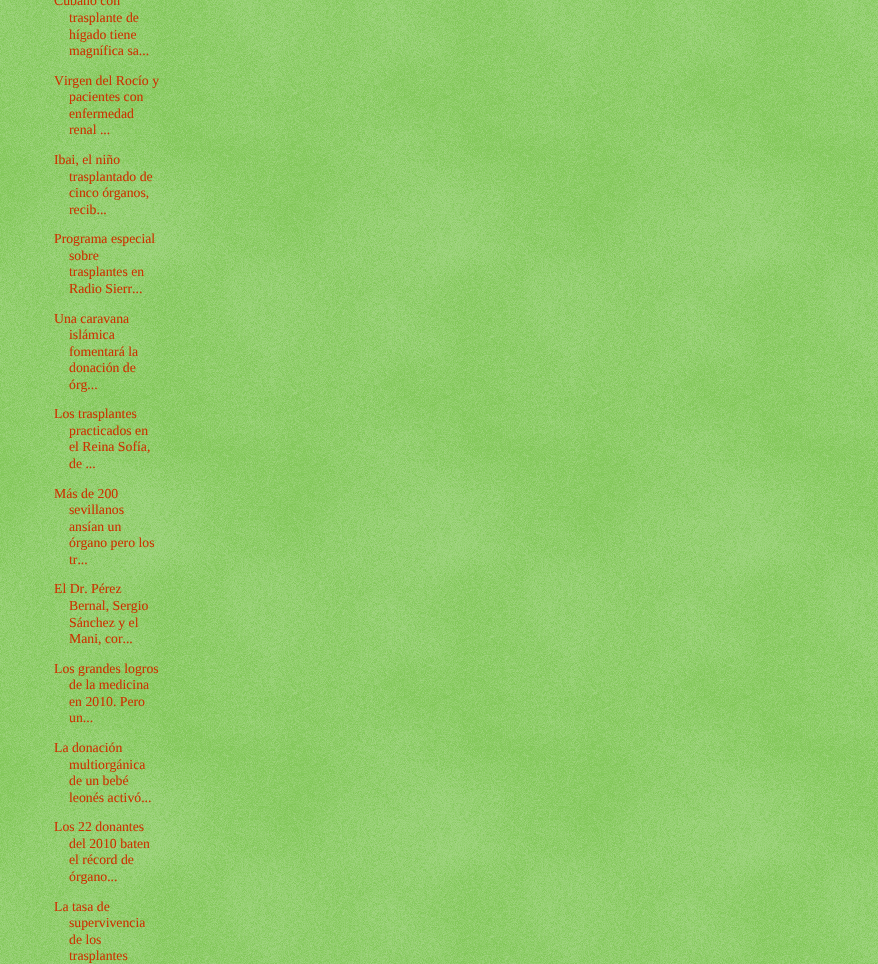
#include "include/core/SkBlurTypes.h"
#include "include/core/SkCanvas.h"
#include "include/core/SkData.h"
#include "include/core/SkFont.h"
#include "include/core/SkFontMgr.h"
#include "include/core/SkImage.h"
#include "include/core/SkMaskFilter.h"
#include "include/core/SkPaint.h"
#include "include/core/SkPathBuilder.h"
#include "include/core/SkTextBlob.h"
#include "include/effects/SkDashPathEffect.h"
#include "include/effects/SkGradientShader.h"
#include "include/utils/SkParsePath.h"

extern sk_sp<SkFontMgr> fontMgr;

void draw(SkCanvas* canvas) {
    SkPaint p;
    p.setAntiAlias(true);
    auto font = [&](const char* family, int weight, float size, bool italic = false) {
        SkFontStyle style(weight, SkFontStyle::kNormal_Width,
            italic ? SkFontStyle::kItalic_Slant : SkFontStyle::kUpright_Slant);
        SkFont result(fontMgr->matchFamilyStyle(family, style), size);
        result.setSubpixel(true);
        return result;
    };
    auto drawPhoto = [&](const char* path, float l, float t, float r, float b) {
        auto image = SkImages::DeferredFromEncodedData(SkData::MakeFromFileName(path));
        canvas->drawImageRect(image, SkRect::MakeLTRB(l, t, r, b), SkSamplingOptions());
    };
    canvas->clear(0xFF66BB33);
    drawPhoto("media/1.png", 0, 0, 878, 964);
    auto font1 = font("Liberation Serif", 400, 13.75f);
    p.setColor(0xFFCC3300);
    {
        const struct { const char* s; float x, y; } items[] = {
            {"Cubano con", 54, 5},
            {"trasplante de", 69, 22},
            {"hígado tiene", 69, 39},
            {"magnífica sa...", 69, 55},
            {"Virgen del Rocío y", 54, 85},
            {"pacientes con", 69, 101},
            {"enfermedad", 69, 118},
            {"renal ...", 69, 134},
            {"Ibai, el niño", 54, 164},
            {"trasplantado de", 69, 181},
            {"cinco órganos,", 69, 197},
            {"recib...", 69, 214},
            {"Programa especial", 54, 243},
            {"sobre", 69, 260},
            {"trasplantes en", 69, 276},
            {"Radio Sierr...", 69, 293},
            {"Una caravana", 54, 323},
            {"islámica", 69, 339},
            {"fomentará la", 69, 356},
            {"donación de", 69, 372},
            {"órg...", 69, 389},
            {"Los trasplantes", 54, 418},
            {"practicados en", 69, 435},
            {"el Reina Sofía,", 69, 451},
            {"de ...", 69, 468},
            {"Más de 200", 54, 498},
            {"sevillanos", 69, 514},
            {"ansían un", 69, 531},
            {"órgano pero los", 69, 547},
            {"tr...", 69, 564},
            {"El Dr. Pérez", 54, 593},
            {"Bernal, Sergio", 69, 610},
            {"Sánchez y el", 69, 627},
            {"Mani, cor...", 69, 643},
            {"Los grandes logros", 54, 673},
            {"de la medicina", 69, 689},
            {"en 2010. Pero", 69, 706},
            {"un...", 69, 722},
            {"La donación", 54, 752},
            {"multiorgánica", 69, 769},
            {"de un bebé", 69, 785},
            {"leonés activó...", 69, 802},
            {"Los 22 donantes", 54, 831},
            {"del 2010 baten", 69, 848},
            {"el récord de", 69, 864},
            {"órgano...", 69, 881},
            {"La tasa de", 54, 911},
            {"supervivencia", 69, 927},
            {"de los", 69, 944},
            {"trasplantes", 69, 960},
        };
        for (auto [s, x, y] : items) {
            canvas->drawString(s, x, y, font1, p);
        }
    }
}
